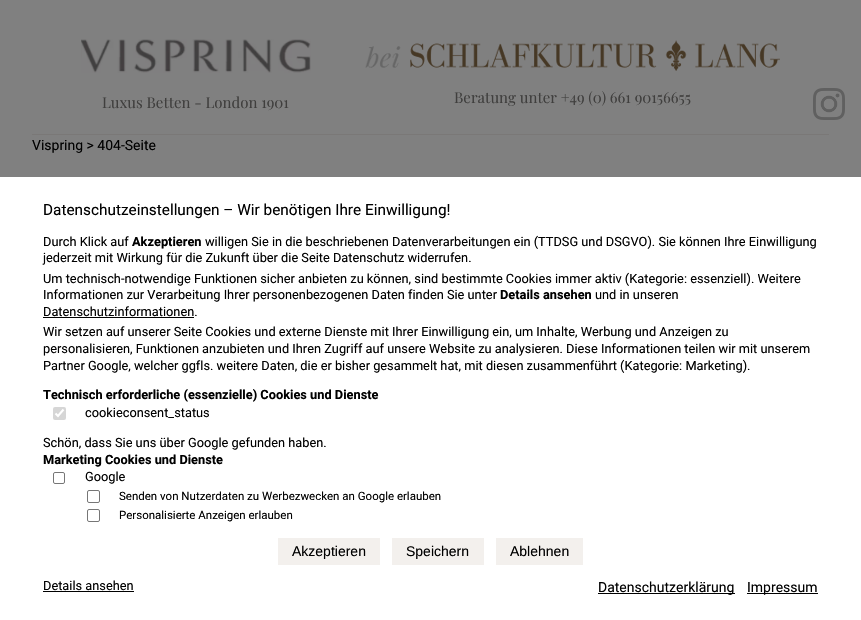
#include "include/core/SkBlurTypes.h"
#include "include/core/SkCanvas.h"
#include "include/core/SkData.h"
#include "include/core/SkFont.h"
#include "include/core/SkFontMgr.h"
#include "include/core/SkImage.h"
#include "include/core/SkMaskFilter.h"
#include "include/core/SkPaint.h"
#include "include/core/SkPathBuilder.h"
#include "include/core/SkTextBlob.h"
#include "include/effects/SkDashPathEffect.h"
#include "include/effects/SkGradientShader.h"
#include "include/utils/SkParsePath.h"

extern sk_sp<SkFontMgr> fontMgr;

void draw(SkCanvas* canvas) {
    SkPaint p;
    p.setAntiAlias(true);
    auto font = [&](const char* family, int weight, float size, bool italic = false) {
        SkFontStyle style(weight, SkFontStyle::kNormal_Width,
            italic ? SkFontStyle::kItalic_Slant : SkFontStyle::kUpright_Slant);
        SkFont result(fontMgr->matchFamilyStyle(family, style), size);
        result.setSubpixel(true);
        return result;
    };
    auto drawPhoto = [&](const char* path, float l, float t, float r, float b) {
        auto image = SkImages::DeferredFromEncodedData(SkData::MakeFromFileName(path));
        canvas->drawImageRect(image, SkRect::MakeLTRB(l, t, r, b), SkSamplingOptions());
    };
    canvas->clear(0xFF808080);
    drawPhoto("media/1.png", 81, 39, 311, 73);
    auto font1 = font("Playfair Display", 400, 15);
    p.setColor(0xFF403F3E);
    canvas->drawString("Luxus Betten - London 1901", 102, 108, font1, p);
    drawPhoto("media/2.png", 365, 40, 780, 71);
    canvas->drawString("Beratung unter +49 (0) 661 90156655", 454, 103, font1, p);
    drawPhoto("media/3.png", 813, 88, 845, 120);
    p.setColor(0xFF7A7877);
    canvas->drawRect(SkRect::MakeLTRB(32, 134, 829, 135), p);
    auto font2 = font("Roboto", 400, 14);
    p.setColor(0xFF000000);
    canvas->drawString("Vispring > 404-Seite", 32, 150, font2, p);
    p.setColor(0xFFFFFFFF);
    canvas->drawRect(SkRect::MakeLTRB(0, 177, 861, 620), p);
    auto font3 = font("Roboto", 400, 15.35f);
    p.setColor(0xFF000000);
    canvas->drawString("Datenschutzeinstellungen – Wir benötigen Ihre Einwilligung!", 43, 215, font3, p);
    auto font4 = font("Roboto", 400, 12.8f);
    canvas->drawString("Durch Klick auf", 43, 246, font4, p);
    auto font5 = font("Roboto", 700, 12.8f);
    canvas->drawString("Akzeptieren", 132, 246, font5, p);
    {
        const struct { const char* s; float x, y; } items[] = {
            {"willigen Sie in die beschriebenen Datenverarbeitungen ein (TTDSG und DSGVO). Sie können Ihre Einwilligung", 205, 246},
            {"jederzeit mit Wirkung für die Zukunft über die Seite Datenschutz widerrufen.", 43, 262},
            {"Um technisch-notwendige Funktionen sicher anbieten zu können, sind bestimmte Cookies immer aktiv (Kategorie: essenziell). Weitere", 43, 283},
            {"Informationen zur Verarbeitung Ihrer personenbezogenen Daten finden Sie unter", 43, 299},
        };
        for (auto [s, x, y] : items) {
            canvas->drawString(s, x, y, font4, p);
        }
    }
    canvas->drawString("Details ansehen", 500, 299, font5, p);
    canvas->drawString("und in unseren", 595, 299, font4, p);
    canvas->drawString("Datenschutzinformationen.", 43, 316, font4, p);
    canvas->drawRect(SkRect::MakeLTRB(43, 317, 194, 318), p);
    {
        const struct { const char* s; float x, y; } items[] = {
            {"Wir setzen auf unserer Seite Cookies und externe Dienste mit Ihrer Einwilligung ein, um Inhalte, Werbung und Anzeigen zu", 43, 336},
            {"personalisieren, Funktionen anzubieten und Ihren Zugriff auf unsere Website zu analysieren. Diese Informationen teilen wir mit unserem", 43, 353},
            {"Partner Google, welcher ggfls. weitere Daten, die er bisher gesammelt hat, mit diesen zusammenführt (Kategorie: Marketing).", 43, 370},
        };
        for (auto [s, x, y] : items) {
            canvas->drawString(s, x, y, font4, p);
        }
    }
    canvas->drawString("Technisch erforderliche (essenzielle) Cookies und Dienste", 43, 399, font5, p);
    p.setColor(0xFFD6D6D6);
    canvas->drawRoundRect(SkRect::MakeLTRB(53, 407, 66, 420), 2, 2, p);
    p.setStyle(SkPaint::kStroke_Style);
    p.setStrokeWidth(2.1f);
    p.setColor(0xFFFFFFFF);
    canvas->drawPath(SkPathBuilder().moveTo(55.5f, 413.5f).lineTo(58, 416).lineTo(63.5f, 409.5f).detach(), p);
    p.setStyle(SkPaint::kFill_Style);
    p.setColor(0xFF000000);
    canvas->drawString("cookieconsent_status", 85, 417, font4, p);
    canvas->drawString("Schön, dass Sie uns über Google gefunden haben.", 43, 447, font4, p);
    canvas->drawString("Marketing Cookies und Dienste", 43, 464, font5, p);
    p.setStyle(SkPaint::kStroke_Style);
    p.setStrokeWidth(1);
    p.setColor(0xFF767676);
    canvas->drawRoundRect(SkRect::MakeLTRB(53.5f, 472.5f, 64.5f, 483.5f), 1.5f, 1.5f, p);
    p.setStyle(SkPaint::kFill_Style);
    p.setColor(0xFF000000);
    canvas->drawString("Google", 85, 481, font4, p);
    p.setStyle(SkPaint::kStroke_Style);
    p.setColor(0xFF767676);
    canvas->drawRoundRect(SkRect::MakeLTRB(87.5f, 490.5f, 99.5f, 502.5f), 1.5f, 1.5f, p);
    auto font6 = font("Roboto", 400, 11.5f);
    p.setStyle(SkPaint::kFill_Style);
    p.setColor(0xFF000000);
    canvas->drawString("Senden von Nutzerdaten zu Werbezwecken an Google erlauben", 119, 500, font6, p);
    p.setStyle(SkPaint::kStroke_Style);
    p.setColor(0xFF767676);
    canvas->drawRoundRect(SkRect::MakeLTRB(87.5f, 509.5f, 99.5f, 521.5f), 1.5f, 1.5f, p);
    p.setStyle(SkPaint::kFill_Style);
    p.setColor(0xFF000000);
    canvas->drawString("Personalisierte Anzeigen erlauben", 119, 519, font6, p);
    p.setColor(0xFFF3F0ED);
    canvas->drawRect(SkRect::MakeLTRB(278, 538, 380, 565), p);
    auto font7 = font("Liberation Sans", 400, 14);
    p.setColor(0xFF000000);
    canvas->drawString("Akzeptieren", 292, 556, font7, p);
    p.setColor(0xFFF3F0ED);
    canvas->drawRect(SkRect::MakeLTRB(392, 538, 484, 565), p);
    p.setColor(0xFF000000);
    canvas->drawString("Speichern", 406, 556, font7, p);
    p.setColor(0xFFF3F0ED);
    canvas->drawRect(SkRect::MakeLTRB(496, 538, 583, 565), p);
    p.setColor(0xFF000000);
    canvas->drawString("Ablehnen", 510, 556, font7, p);
    canvas->drawString("Details ansehen", 43, 590, font4, p);
    canvas->drawRect(SkRect::MakeLTRB(43, 591, 134, 592), p);
    canvas->drawRect(SkRect::MakeLTRB(598, 593, 735, 594), p);
    canvas->drawString("Datenschutzerklärung", 598, 592, font2, p);
    canvas->drawRect(SkRect::MakeLTRB(747, 593, 818, 594), p);
    canvas->drawString("Impressum", 747, 592, font2, p);
}
